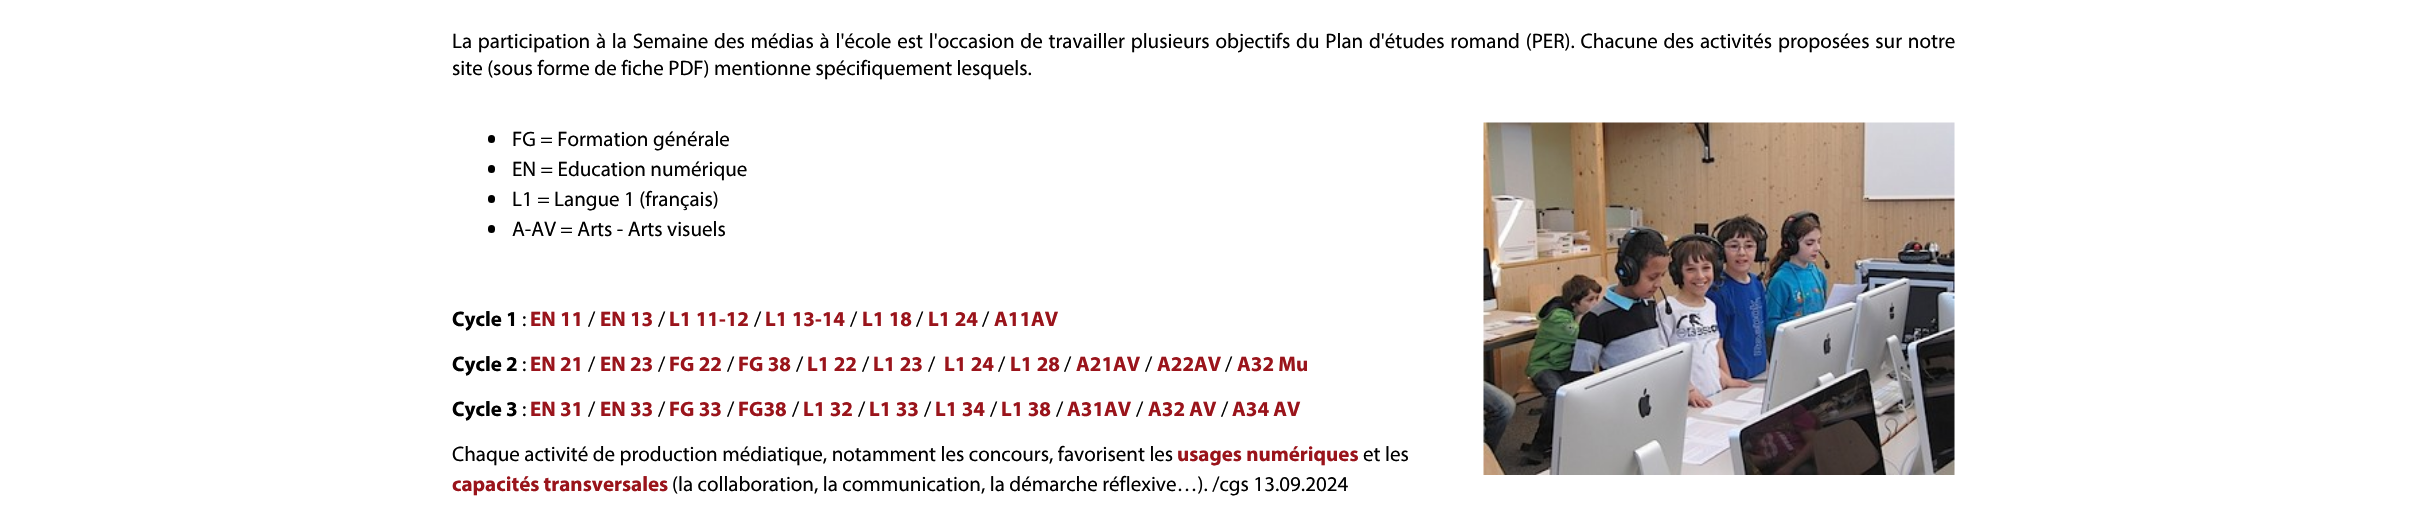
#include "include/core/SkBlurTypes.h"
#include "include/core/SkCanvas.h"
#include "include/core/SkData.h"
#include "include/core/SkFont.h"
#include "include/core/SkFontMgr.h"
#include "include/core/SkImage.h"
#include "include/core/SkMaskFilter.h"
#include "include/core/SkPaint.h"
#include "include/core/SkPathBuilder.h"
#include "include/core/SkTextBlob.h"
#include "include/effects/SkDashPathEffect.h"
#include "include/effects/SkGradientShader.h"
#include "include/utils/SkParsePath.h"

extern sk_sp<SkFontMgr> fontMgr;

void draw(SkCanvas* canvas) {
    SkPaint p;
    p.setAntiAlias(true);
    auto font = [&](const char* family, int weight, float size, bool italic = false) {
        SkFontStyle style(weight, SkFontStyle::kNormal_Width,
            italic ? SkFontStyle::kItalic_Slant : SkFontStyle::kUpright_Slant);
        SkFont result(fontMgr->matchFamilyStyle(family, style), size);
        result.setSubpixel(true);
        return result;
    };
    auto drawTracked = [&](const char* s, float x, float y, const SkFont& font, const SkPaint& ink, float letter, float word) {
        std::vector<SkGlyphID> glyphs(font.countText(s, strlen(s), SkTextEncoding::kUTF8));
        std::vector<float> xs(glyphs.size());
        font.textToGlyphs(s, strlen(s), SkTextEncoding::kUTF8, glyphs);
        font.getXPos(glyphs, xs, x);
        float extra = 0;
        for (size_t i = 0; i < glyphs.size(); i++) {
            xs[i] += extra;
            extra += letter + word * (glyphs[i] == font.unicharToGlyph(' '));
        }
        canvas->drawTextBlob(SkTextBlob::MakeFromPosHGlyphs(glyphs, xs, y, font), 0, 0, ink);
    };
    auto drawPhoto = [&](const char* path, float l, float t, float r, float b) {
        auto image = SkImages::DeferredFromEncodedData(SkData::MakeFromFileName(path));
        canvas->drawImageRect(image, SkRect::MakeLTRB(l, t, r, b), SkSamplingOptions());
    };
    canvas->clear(0xFFFFFFFF);
    auto font1 = font("Myriad", 400, 21);
    p.setColor(0xFF000000);
    drawTracked("La participation à la Semaine des médias à l'école est l'occasion de travailler plusieurs objectifs du Plan d'études romand (PER). Chacune des activités proposées sur notre", 452, 48, font1, p, 0, 1.35f);
    canvas->drawString("site (sous forme de fiche PDF) mentionne spécifiquement lesquels.", 452, 75, font1, p);
    canvas->drawRoundRect(SkRect::MakeLTRB(488, 135, 495, 143), 3.5f, 3.5f, p);
    canvas->drawString("FG = Formation générale", 512, 146, font1, p);
    canvas->drawRoundRect(SkRect::MakeLTRB(488, 165, 495, 173), 3.5f, 3.5f, p);
    canvas->drawString("EN = Education numérique", 512, 176, font1, p);
    canvas->drawRoundRect(SkRect::MakeLTRB(488, 195, 495, 203), 3.5f, 3.5f, p);
    canvas->drawString("L1 = Langue 1 (français)", 512, 206, font1, p);
    canvas->drawRoundRect(SkRect::MakeLTRB(488, 225, 495, 233), 3.5f, 3.5f, p);
    canvas->drawString("A-AV = Arts - Arts visuels", 512, 236, font1, p);
    auto font2 = font("Myriad", 700, 21);
    canvas->drawString("Cycle 1", 452, 326, font2, p);
    canvas->drawString(":", 522, 326, font1, p);
    p.setColor(0xFF9A141B);
    canvas->drawString("EN 11", 530, 326, font2, p);
    p.setColor(0xFF000000);
    canvas->drawString("/", 588, 326, font1, p);
    p.setColor(0xFF9A141B);
    canvas->drawString("EN 13", 600, 326, font2, p);
    p.setColor(0xFF000000);
    canvas->drawString("/", 658, 326, font1, p);
    p.setColor(0xFF9A141B);
    canvas->drawString("L1 11-12", 669, 326, font2, p);
    p.setColor(0xFF000000);
    canvas->drawString("/", 754, 326, font1, p);
    p.setColor(0xFF9A141B);
    canvas->drawString("L1 13-14", 765, 326, font2, p);
    p.setColor(0xFF000000);
    canvas->drawString("/", 850, 326, font1, p);
    p.setColor(0xFF9A141B);
    canvas->drawString("L1 18", 862, 326, font2, p);
    p.setColor(0xFF000000);
    canvas->drawString("/", 916, 326, font1, p);
    p.setColor(0xFF9A141B);
    canvas->drawString("L1 24", 928, 326, font2, p);
    p.setColor(0xFF000000);
    canvas->drawString("/", 982, 326, font1, p);
    p.setColor(0xFF9A141B);
    canvas->drawString("A11AV", 994, 326, font2, p);
    p.setColor(0xFF000000);
    canvas->drawString("Cycle 2", 452, 371, font2, p);
    canvas->drawString(":", 522, 371, font1, p);
    p.setColor(0xFF9A141B);
    canvas->drawString("EN 21", 530, 371, font2, p);
    p.setColor(0xFF000000);
    canvas->drawString("/", 588, 371, font1, p);
    p.setColor(0xFF9A141B);
    canvas->drawString("EN 23", 600, 371, font2, p);
    p.setColor(0xFF000000);
    canvas->drawString("/", 658, 371, font1, p);
    p.setColor(0xFF9A141B);
    canvas->drawString("FG 22", 669, 371, font2, p);
    p.setColor(0xFF000000);
    canvas->drawString("/", 727, 371, font1, p);
    p.setColor(0xFF9A141B);
    canvas->drawString("FG 38", 738, 371, font2, p);
    p.setColor(0xFF000000);
    canvas->drawString("/", 796, 371, font1, p);
    p.setColor(0xFF9A141B);
    canvas->drawString("L1 22", 807, 371, font2, p);
    p.setColor(0xFF000000);
    canvas->drawString("/", 862, 371, font1, p);
    p.setColor(0xFF9A141B);
    canvas->drawString("L1 23", 873, 371, font2, p);
    p.setColor(0xFF000000);
    canvas->drawString("/", 928, 371, font1, p);
    p.setColor(0xFF9A141B);
    canvas->drawString("L1 24", 944, 371, font2, p);
    p.setColor(0xFF000000);
    canvas->drawString("/", 998, 371, font1, p);
    p.setColor(0xFF9A141B);
    canvas->drawString("L1 28", 1010, 371, font2, p);
    p.setColor(0xFF000000);
    canvas->drawString("/", 1064, 371, font1, p);
    p.setColor(0xFF9A141B);
    canvas->drawString("A21AV", 1076, 371, font2, p);
    p.setColor(0xFF000000);
    canvas->drawString("/", 1145, 371, font1, p);
    p.setColor(0xFF9A141B);
    canvas->drawString("A22AV", 1157, 371, font2, p);
    p.setColor(0xFF000000);
    canvas->drawString("/", 1225, 371, font1, p);
    p.setColor(0xFF9A141B);
    canvas->drawString("A32 Mu", 1237, 371, font2, p);
    p.setColor(0xFF000000);
    canvas->drawString("Cycle 3", 452, 416, font2, p);
    canvas->drawString(":", 522, 416, font1, p);
    p.setColor(0xFF9A141B);
    canvas->drawString("EN 31", 530, 416, font2, p);
    p.setColor(0xFF000000);
    canvas->drawString("/", 588, 416, font1, p);
    p.setColor(0xFF9A141B);
    canvas->drawString("EN 33", 600, 416, font2, p);
    p.setColor(0xFF000000);
    canvas->drawString("/", 658, 416, font1, p);
    p.setColor(0xFF9A141B);
    canvas->drawString("FG 33", 669, 416, font2, p);
    p.setColor(0xFF000000);
    canvas->drawString("/", 727, 416, font1, p);
    p.setColor(0xFF9A141B);
    canvas->drawString("FG38", 738, 416, font2, p);
    p.setColor(0xFF000000);
    canvas->drawString("/", 792, 416, font1, p);
    p.setColor(0xFF9A141B);
    canvas->drawString("L1 32", 803, 416, font2, p);
    p.setColor(0xFF000000);
    canvas->drawString("/", 858, 416, font1, p);
    p.setColor(0xFF9A141B);
    canvas->drawString("L1 33", 869, 416, font2, p);
    p.setColor(0xFF000000);
    canvas->drawString("/", 924, 416, font1, p);
    p.setColor(0xFF9A141B);
    canvas->drawString("L1 34", 935, 416, font2, p);
    p.setColor(0xFF000000);
    canvas->drawString("/", 990, 416, font1, p);
    p.setColor(0xFF9A141B);
    canvas->drawString("L1 38", 1001, 416, font2, p);
    p.setColor(0xFF000000);
    canvas->drawString("/", 1056, 416, font1, p);
    p.setColor(0xFF9A141B);
    canvas->drawString("A31AV", 1067, 416, font2, p);
    p.setColor(0xFF000000);
    canvas->drawString("/", 1136, 416, font1, p);
    p.setColor(0xFF9A141B);
    canvas->drawString("A32 AV", 1148, 416, font2, p);
    p.setColor(0xFF000000);
    canvas->drawString("/", 1221, 416, font1, p);
    p.setColor(0xFF9A141B);
    canvas->drawString("A34 AV", 1232, 416, font2, p);
    p.setColor(0xFF000000);
    canvas->drawString("Chaque activité de production médiatique, notamment les concours, favorisent les", 452, 461, font1, p);
    p.setColor(0xFF9A141B);
    canvas->drawString("usages numériques", 1177, 461, font2, p);
    p.setColor(0xFF000000);
    canvas->drawString("et les", 1363, 461, font1, p);
    p.setColor(0xFF9A141B);
    canvas->drawString("capacités transversales", 452, 491, font2, p);
    p.setColor(0xFF000000);
    canvas->drawString("(la collaboration, la communication, la démarche réflexive…). /cgs 13.09.2024", 672, 491, font1, p);
    drawPhoto("media/1.png", 1483, 122, 1955, 475);
}
